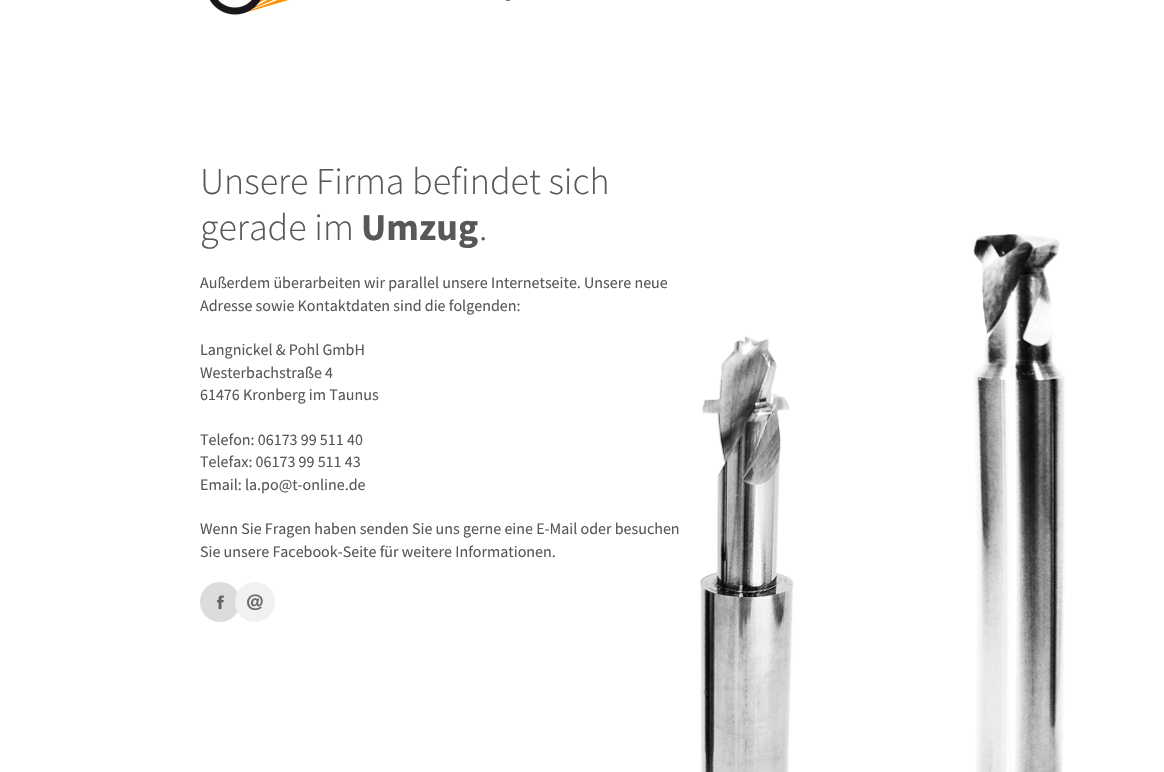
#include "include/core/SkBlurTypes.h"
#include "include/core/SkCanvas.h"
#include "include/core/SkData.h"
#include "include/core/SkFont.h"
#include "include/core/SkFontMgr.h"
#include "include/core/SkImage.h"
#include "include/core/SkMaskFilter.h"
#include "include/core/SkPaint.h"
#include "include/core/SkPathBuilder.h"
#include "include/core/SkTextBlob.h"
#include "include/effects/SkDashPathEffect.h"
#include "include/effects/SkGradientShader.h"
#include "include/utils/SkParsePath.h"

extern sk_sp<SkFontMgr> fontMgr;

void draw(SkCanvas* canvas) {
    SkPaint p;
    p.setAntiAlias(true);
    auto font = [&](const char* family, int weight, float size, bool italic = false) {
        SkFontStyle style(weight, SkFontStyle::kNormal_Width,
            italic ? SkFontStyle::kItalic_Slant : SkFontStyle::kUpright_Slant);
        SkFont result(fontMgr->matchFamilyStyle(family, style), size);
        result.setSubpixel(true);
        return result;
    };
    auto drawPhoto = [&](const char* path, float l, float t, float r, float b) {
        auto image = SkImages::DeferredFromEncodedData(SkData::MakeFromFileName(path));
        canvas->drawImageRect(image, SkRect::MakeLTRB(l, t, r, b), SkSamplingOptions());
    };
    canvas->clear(0xFFFFFFFF);
    drawPhoto("media/1.png", 700, 234, 1065, 772);
    drawPhoto("media/2.png", 209, 0, 511, 15);
    auto font1 = font("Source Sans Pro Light", 300, 38);
    p.setColor(0xFF585858);
    canvas->drawString("Unsere Firma befindet sich", 200, 194, font1, p);
    canvas->drawString("gerade im", 200, 240, font1, p);
    auto font2 = font("Source Sans Pro", 700, 38);
    canvas->drawString("Umzug", 361, 240, font2, p);
    canvas->drawString(".", 479, 240, font1, p);
    auto font3 = font("Source Sans Pro", 400, 16);
    {
        const struct { const char* s; float x, y; } items[] = {
            {"Außerdem überarbeiten wir parallel unsere Internetseite. Unsere neue", 200, 288},
            {"Adresse sowie Kontaktdaten sind die folgenden:", 200, 311},
            {"Langnickel & Pohl GmbH", 200, 355},
            {"Westerbachstraße 4", 200, 378},
            {"61476 Kronberg im Taunus", 200, 400},
            {"Telefon: 06173 99 511 40", 200, 445},
            {"Telefax: 06173 99 511 43", 200, 467},
            {"Email: la.po@t-online.de", 200, 490},
            {"Wenn Sie Fragen haben senden Sie uns gerne eine E-Mail oder besuchen", 200, 534},
            {"Sie unsere Facebook-Seite für weitere Informationen.", 200, 557},
        };
        for (auto [s, x, y] : items) {
            canvas->drawString(s, x, y, font3, p);
        }
    }
    p.setColor(0xFFDCDCDC);
    canvas->drawCircle(220, 602, 20, p);
    drawPhoto("media/3.png", 217, 595, 224, 609);
    p.setColor(0xFFF1F1F1);
    canvas->drawCircle(255, 602, 20, p);
    drawPhoto("media/4.png", 247, 594, 263, 611);
}
